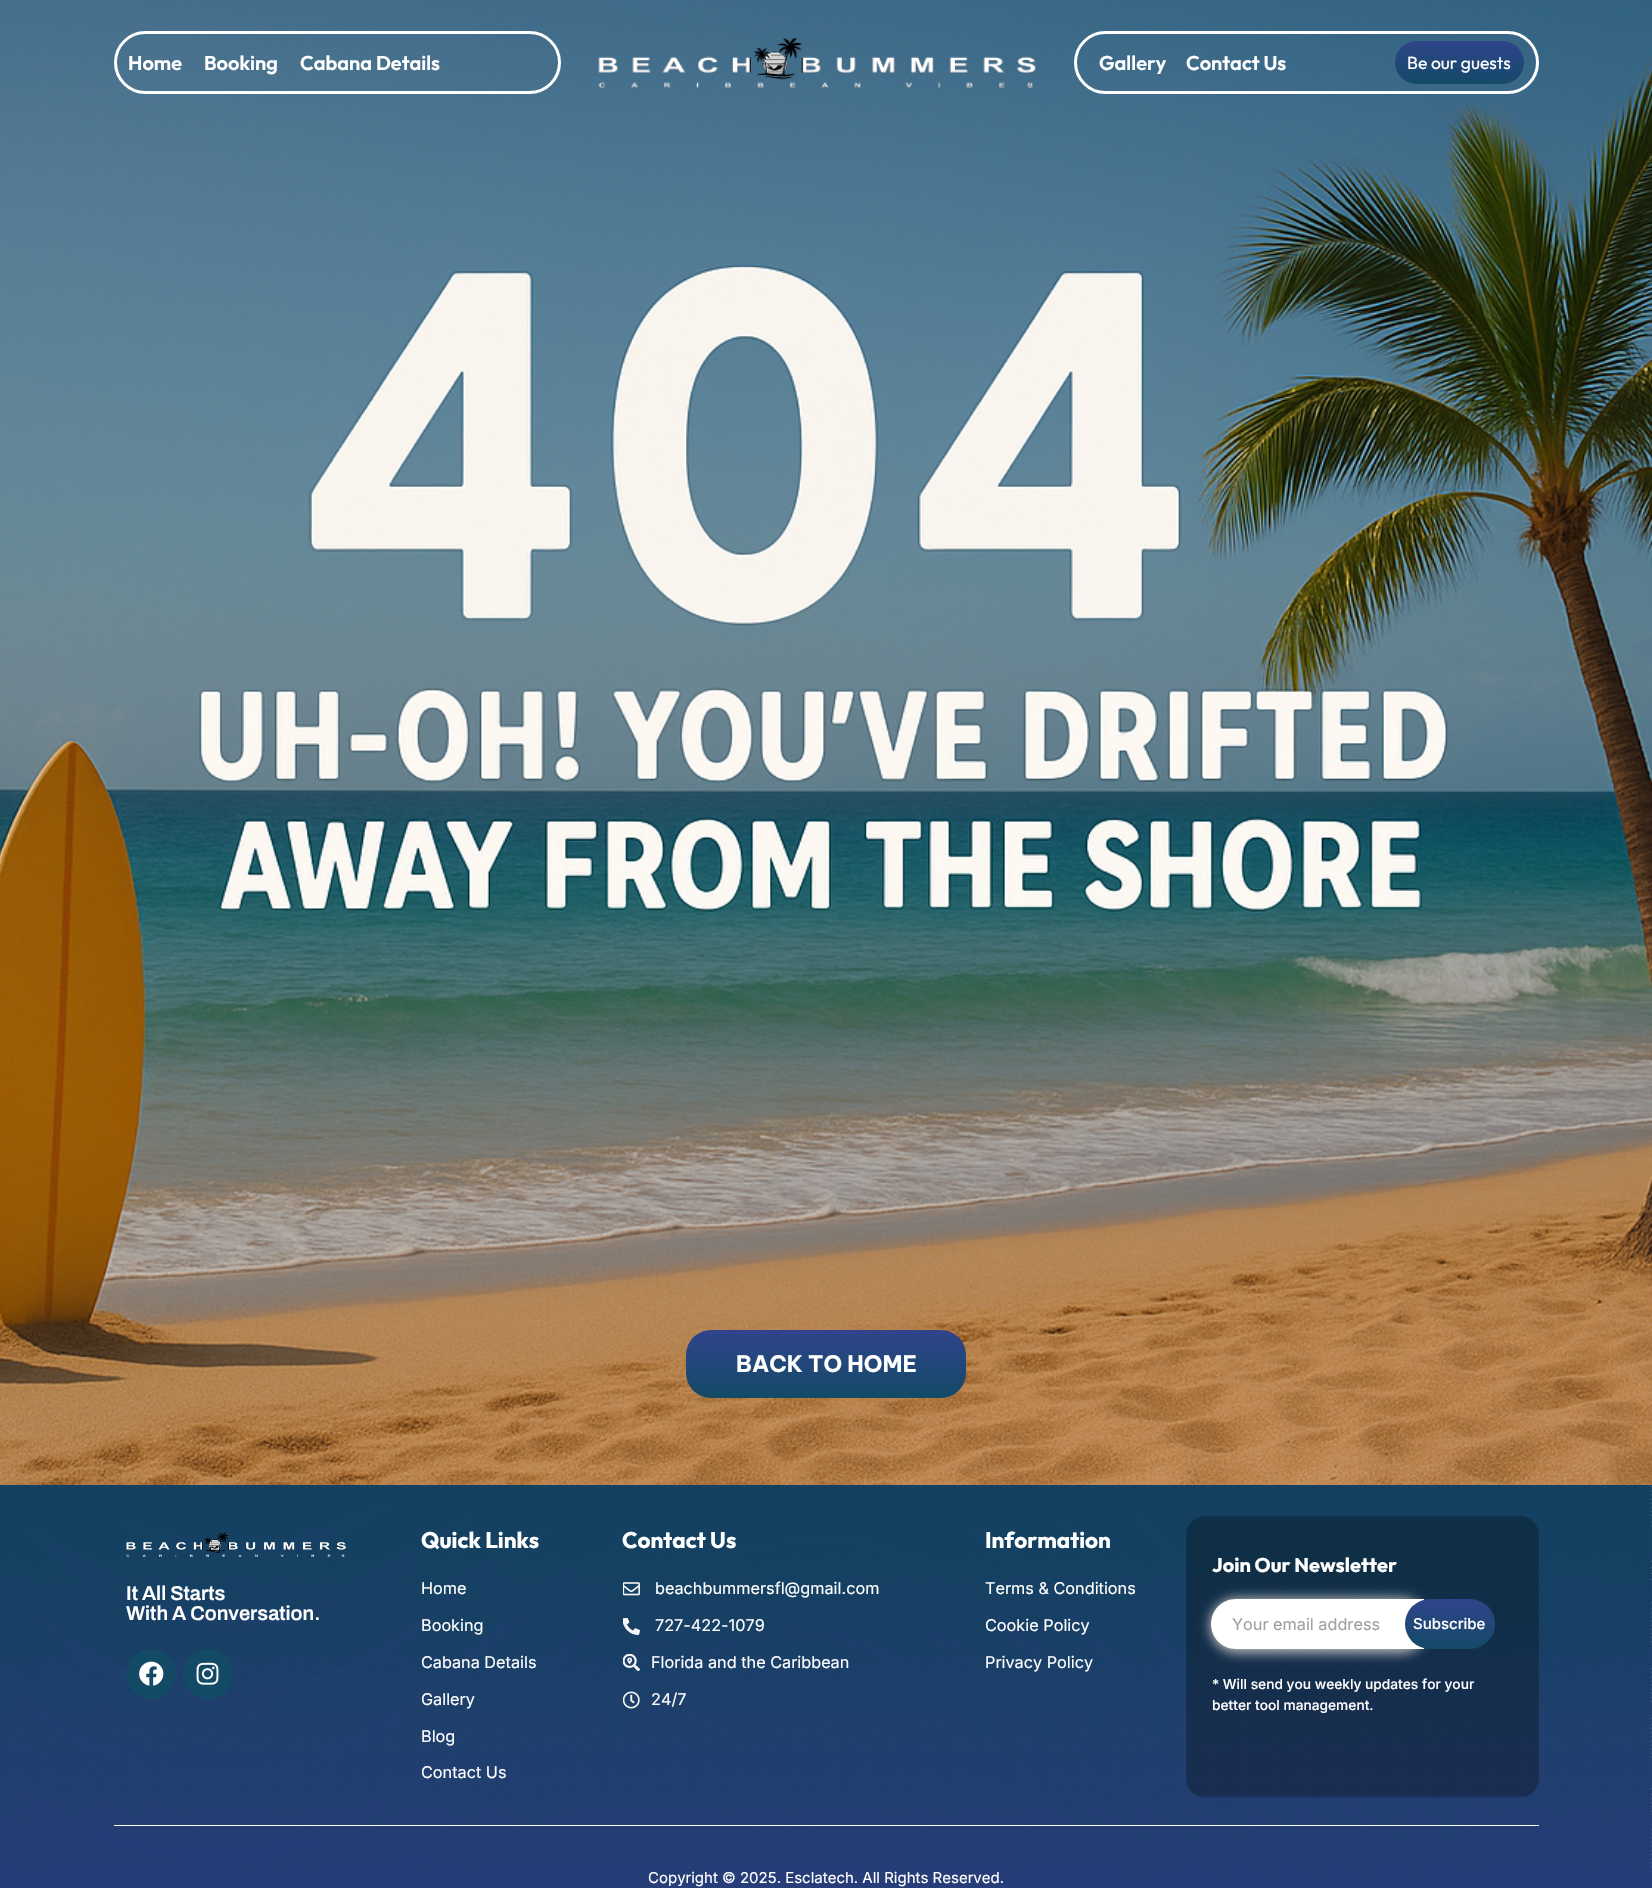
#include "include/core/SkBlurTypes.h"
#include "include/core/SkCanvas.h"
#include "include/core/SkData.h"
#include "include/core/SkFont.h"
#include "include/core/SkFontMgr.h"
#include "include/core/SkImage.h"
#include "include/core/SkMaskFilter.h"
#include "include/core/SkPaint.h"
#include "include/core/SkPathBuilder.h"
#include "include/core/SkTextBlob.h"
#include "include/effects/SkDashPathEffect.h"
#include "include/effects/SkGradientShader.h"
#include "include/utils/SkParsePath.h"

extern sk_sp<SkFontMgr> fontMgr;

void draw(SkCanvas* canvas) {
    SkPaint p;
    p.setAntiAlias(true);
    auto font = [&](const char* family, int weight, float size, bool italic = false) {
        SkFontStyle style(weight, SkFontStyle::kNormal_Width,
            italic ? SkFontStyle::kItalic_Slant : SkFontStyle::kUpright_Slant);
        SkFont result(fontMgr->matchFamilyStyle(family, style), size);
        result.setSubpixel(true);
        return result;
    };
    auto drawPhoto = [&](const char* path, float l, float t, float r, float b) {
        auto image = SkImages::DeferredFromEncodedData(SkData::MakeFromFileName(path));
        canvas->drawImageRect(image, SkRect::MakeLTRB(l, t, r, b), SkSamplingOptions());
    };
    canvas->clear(0xFFFFFFFF);
    drawPhoto("media/2.png", 0, 0, 1652, 1485);
    p.setStyle(SkPaint::kStroke_Style);
    p.setStrokeWidth(3);
    p.setColor(0xFFFFFFFF);
    canvas->drawRoundRect(SkRect::MakeLTRB(115.5f, 32.5f, 559.5f, 92.5f), 30, 30, p);
    auto font1 = font("Outfit", 600, 20);
    p.setStyle(SkPaint::kFill_Style);
    {
        const struct { const char* s; float x, y; } items[] = {
            {"Home", 128, 70},
            {"Booking", 204, 70},
            {"Cabana Details", 300, 70},
        };
        for (auto [s, x, y] : items) {
            canvas->drawString(s, x, y, font1, p);
        }
    }
    drawPhoto("media/1.png", 598, 37, 1036, 88);
    p.setStyle(SkPaint::kStroke_Style);
    canvas->drawRoundRect(SkRect::MakeLTRB(1075.5f, 32.5f, 1537.5f, 92.5f), 30, 30, p);
    p.setStyle(SkPaint::kFill_Style);
    canvas->drawString("Gallery", 1099, 70, font1, p);
    canvas->drawString("Contact Us", 1186, 70, font1, p);
    {
        const SkColor colors[] = {0xFF30448C, 0xFF134A66};
        const float stops[] = {0, 1};
        const SkPoint ends[] = {{1460, 40}, {1459, 85}};
        p.setShader(SkGradientShader::MakeLinear(ends, colors, stops, 2, SkTileMode::kClamp));
        p.setAlpha(255);
    }
    canvas->drawRoundRect(SkRect::MakeLTRB(1395, 41, 1524, 84), 21.5f, 21.5f, p);
    auto font2 = font("Outfit", 400, 17.5f);
    p.setShader(nullptr);
    p.setColor(0xFFFFFFFF);
    canvas->drawString("Be our guests", 1407, 69, font2, p);
    {
        const SkColor colors[] = {0xFF30448C, 0xFF134A66};
        const float stops[] = {0, 1};
        const SkPoint ends[] = {{826, 1330}, {826, 1398}};
        p.setShader(SkGradientShader::MakeLinear(ends, colors, stops, 2, SkTileMode::kClamp));
        p.setAlpha(255);
    }
    canvas->drawRoundRect(SkRect::MakeLTRB(686, 1330, 966, 1398), 25, 25, p);
    auto font3 = font("Be Vietnam Pro", 700, 22.5f);
    p.setShader(nullptr);
    p.setColor(0xFFFFFFFF);
    canvas->drawString("BACK TO HOME", 736, 1372, font3, p);
    drawPhoto("media/3.png", 0, 1485, 1652, 1888);
    drawPhoto("media/4.png", 126, 1532, 346, 1557);
    auto font4 = font("Archivo", 600, 20);
    canvas->drawString("It All Starts", 126, 1600, font4, p);
    canvas->drawString("With A Conversation.", 126, 1620, font4, p);
    p.setColor(0xFF134A66);
    canvas->drawCircle(151, 1674, 25, p);
    drawPhoto("media/5.png", 139, 1661, 164, 1686);
    canvas->drawCircle(208, 1674, 25, p);
    drawPhoto("media/6.png", 196, 1662, 219, 1685);
    auto font5 = font("Outfit", 700, 22.5f);
    p.setColor(0xFFFFFFFF);
    canvas->drawString("Quick Links", 421, 1548, font5, p);
    auto font6 = font("Inter", 400, 16.25f);
    {
        const struct { const char* s; float x, y; } items[] = {
            {"Home", 421, 1594},
            {"Booking", 421, 1631},
            {"Cabana Details", 421, 1668},
            {"Gallery", 421, 1705},
            {"Blog", 421, 1742},
            {"Contact Us", 421, 1778},
        };
        for (auto [s, x, y] : items) {
            canvas->drawString(s, x, y, font6, p);
        }
    }
    canvas->drawString("Contact Us", 622, 1548, font5, p);
    drawPhoto("media/7.png", 623, 1582, 640, 1596);
    canvas->drawString("beachbummersfl@gmail.com", 655, 1594, font6, p);
    drawPhoto("media/8.png", 623, 1618, 640, 1635);
    canvas->drawString("727-422-1079", 655, 1631, font6, p);
    drawPhoto("media/9.png", 623, 1654, 640, 1671);
    canvas->drawString("Florida and the Caribbean", 651, 1668, font6, p);
    drawPhoto("media/10.png", 623, 1691, 640, 1709);
    canvas->drawString("24/7", 651, 1705, font6, p);
    canvas->drawString("Information", 985, 1548, font5, p);
    {
        const struct { const char* s; float x, y; } items[] = {
            {"Terms & Conditions", 985, 1594},
            {"Cookie Policy", 985, 1631},
            {"Privacy Policy", 985, 1668},
        };
        for (auto [s, x, y] : items) {
            canvas->drawString(s, x, y, font6, p);
        }
    }
    drawPhoto("media/11.png", 1186, 1516, 1539, 1797);
    p.setColor(0x1A000000);
    canvas->drawRoundRect(SkRect::MakeLTRB(1186, 1516, 1539, 1798), 19, 19, p);
    auto font7 = font("Outfit", 700, 20);
    p.setColor(0xFFFFFFFF);
    canvas->drawString("Join Our Newsletter", 1212, 1572, font7, p);
    p.setColor(0xFFBCBCBC);
    p.setMaskFilter(SkMaskFilter::MakeBlur(kNormal_SkBlurStyle, 6));
    canvas->drawRoundRect(SkRect::MakeLTRB(1210, 1598, 1428, 1653), 27.5f, 27.5f, p);
    p.setMaskFilter(nullptr);
    p.setColor(0xFFFFFFFF);
    canvas->drawPath(SkPathBuilder().moveTo(1236, 1599).lineTo(1424, 1599).lineTo(1424, 1649).lineTo(1236, 1649).cubicTo(1222, 1649, 1211, 1638, 1211, 1624).cubicTo(1211, 1610, 1222, 1599, 1236, 1599).close().detach(), p);
    p.setColor(0xFFA0A0A0);
    canvas->drawString("Your email address", 1232, 1630, font6, p);
    {
        const SkColor colors[] = {0xFF30448C, 0xFF134A66};
        const float stops[] = {0, 1};
        const SkPoint ends[] = {{1450, 1599}, {1450, 1649}};
        p.setShader(SkGradientShader::MakeLinear(ends, colors, stops, 2, SkTileMode::kClamp));
        p.setAlpha(255);
    }
    canvas->drawRoundRect(SkRect::MakeLTRB(1405, 1599, 1495, 1649), 25, 25, p);
    auto font8 = font("Inter", 500, 15);
    p.setShader(nullptr);
    p.setColor(0xFFFFFFFF);
    canvas->drawString("Subscribe", 1413, 1629, font8, p);
    auto font9 = font("Inter", 500, 13.75f);
    canvas->drawString("* Will send you weekly updates for your", 1212, 1689, font9, p);
    canvas->drawString("better tool management.", 1212, 1710, font9, p);
    canvas->drawRect(SkRect::MakeLTRB(114, 1825, 1539, 1826), p);
    auto font10 = font("Inter", 400, 15);
    canvas->drawString("Copyright © 2025. Esclatech. All Rights Reserved.", 648, 1883, font10, p);
}
